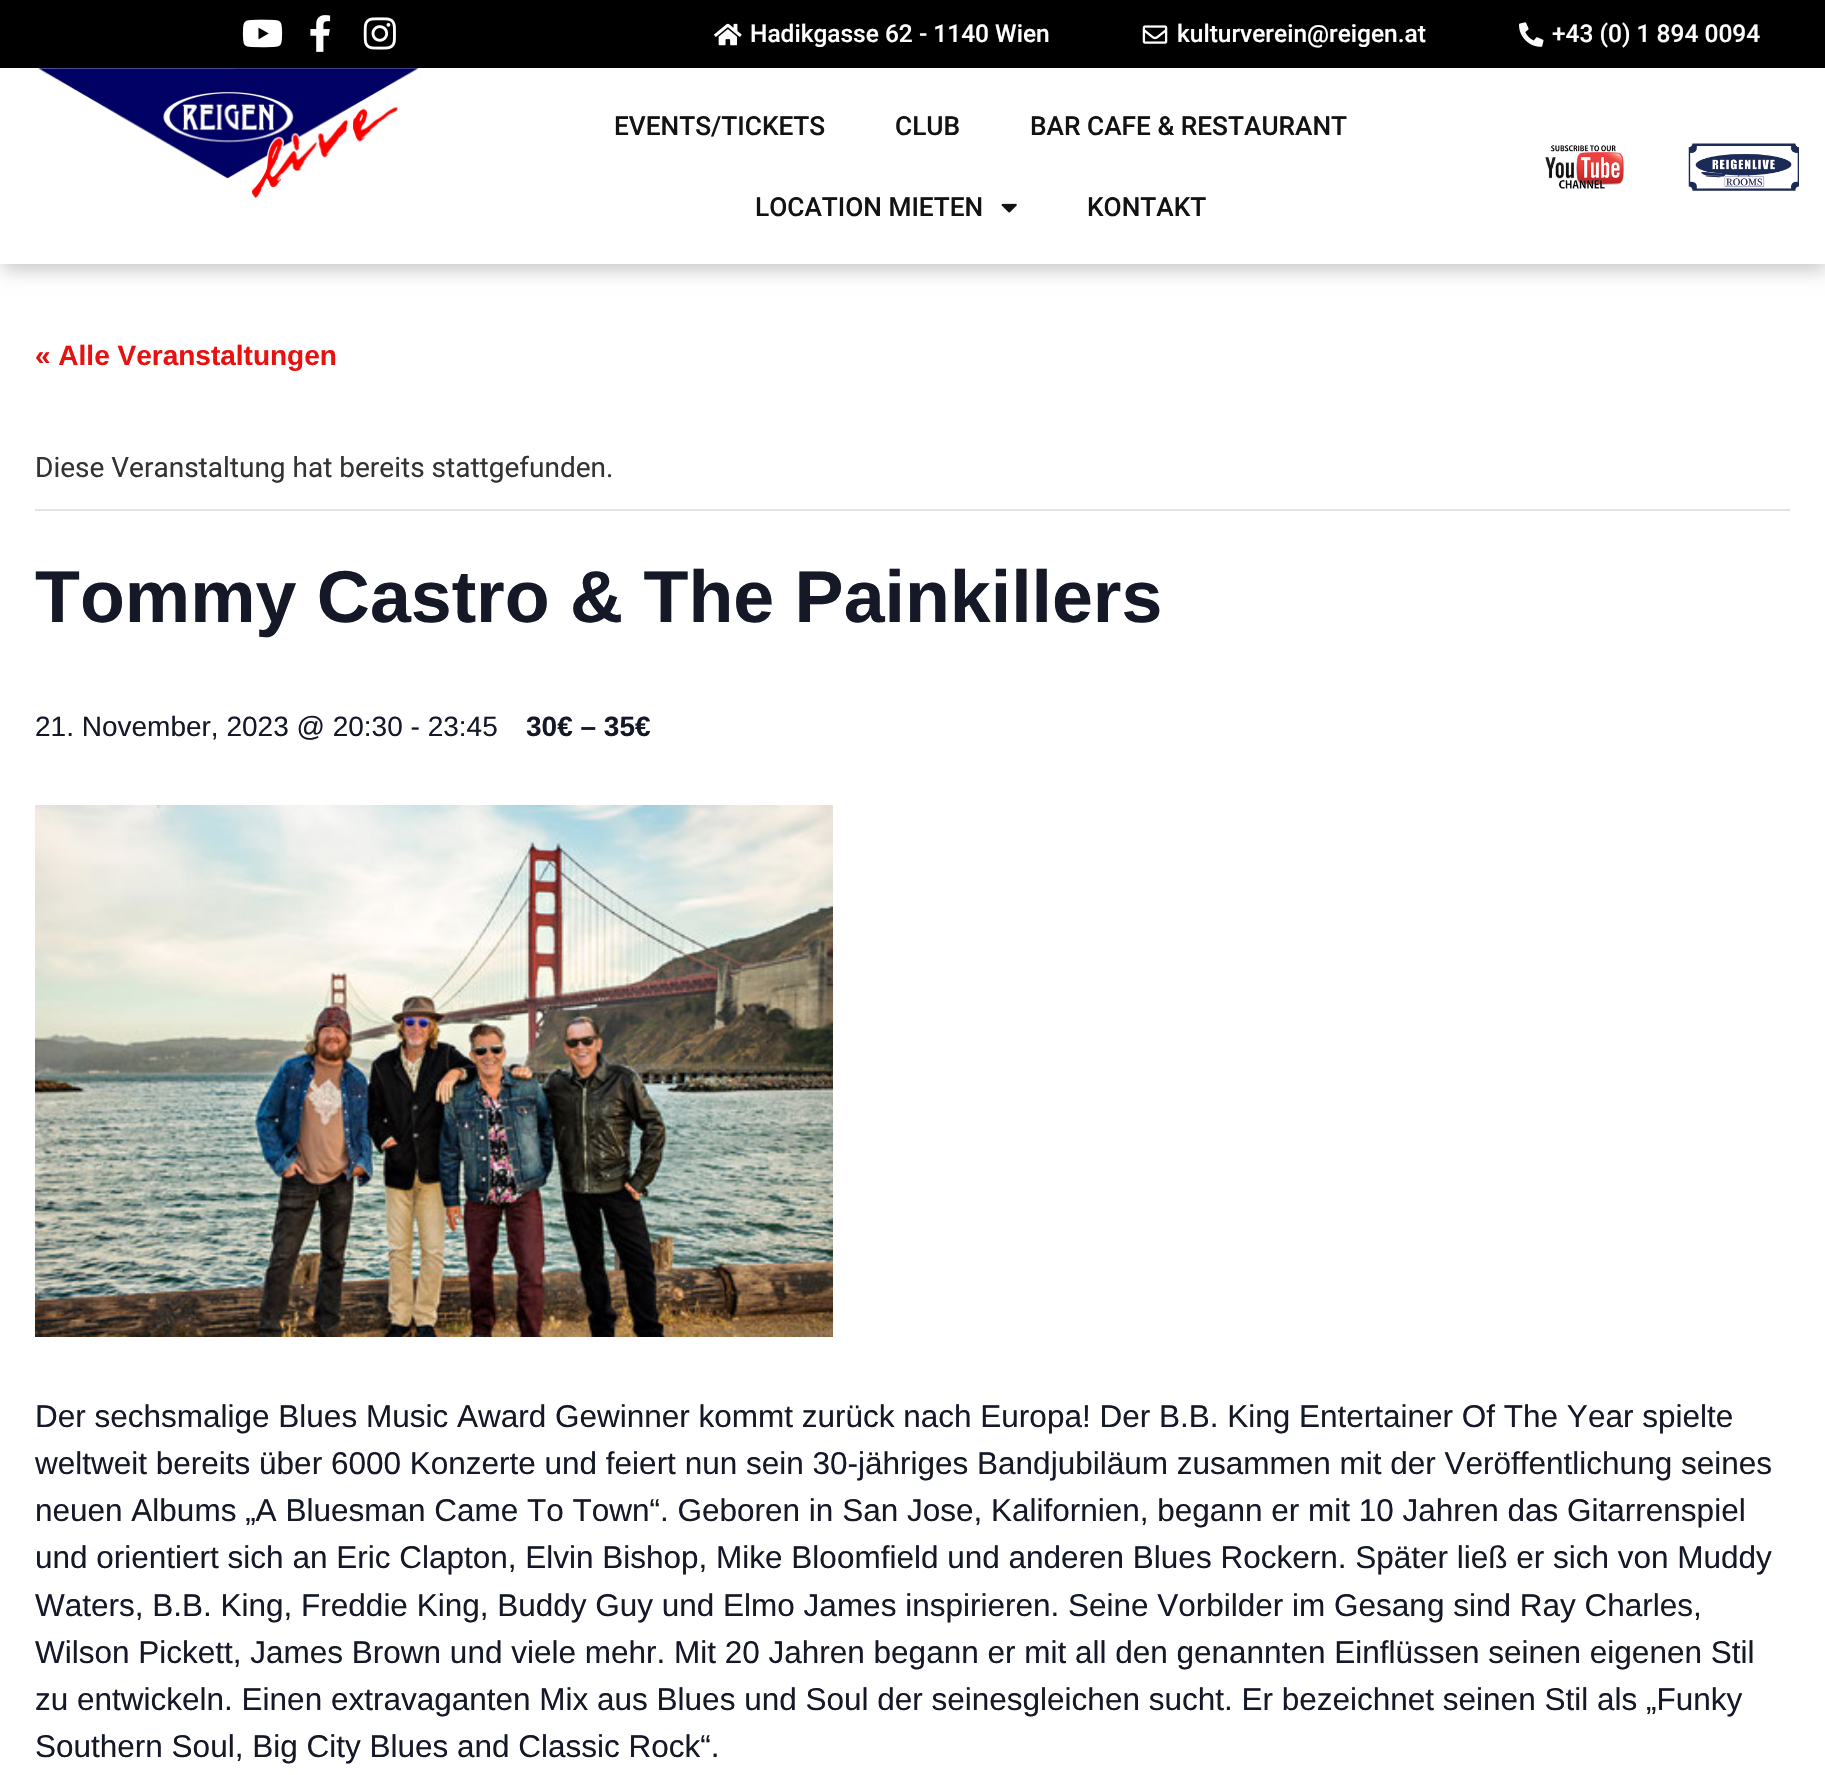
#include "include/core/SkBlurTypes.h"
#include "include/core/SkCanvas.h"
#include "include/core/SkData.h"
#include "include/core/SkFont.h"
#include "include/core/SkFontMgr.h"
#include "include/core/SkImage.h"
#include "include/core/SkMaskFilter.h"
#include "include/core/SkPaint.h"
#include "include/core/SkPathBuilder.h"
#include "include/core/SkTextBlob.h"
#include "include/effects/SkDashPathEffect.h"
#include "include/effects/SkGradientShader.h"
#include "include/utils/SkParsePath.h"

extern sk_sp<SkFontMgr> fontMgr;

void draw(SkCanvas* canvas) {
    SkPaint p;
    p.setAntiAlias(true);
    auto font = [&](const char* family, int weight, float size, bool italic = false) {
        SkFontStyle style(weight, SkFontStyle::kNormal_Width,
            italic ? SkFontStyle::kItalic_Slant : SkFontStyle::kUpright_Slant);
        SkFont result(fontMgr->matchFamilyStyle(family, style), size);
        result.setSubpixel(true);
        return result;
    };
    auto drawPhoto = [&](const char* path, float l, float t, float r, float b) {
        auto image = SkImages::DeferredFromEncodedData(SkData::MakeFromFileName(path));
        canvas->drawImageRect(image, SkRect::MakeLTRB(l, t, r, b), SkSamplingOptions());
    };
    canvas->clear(0xFFFFFFFF);
    p.setColor(0xFF000000);
    canvas->drawRect(SkRect::MakeLTRB(0, 0, 1825, 68), p);
    drawPhoto("media/1.png", 242, 19, 283, 48);
    drawPhoto("media/2.png", 310, 15, 331, 52);
    drawPhoto("media/3.png", 363, 17, 396, 50);
    drawPhoto("media/4.png", 714, 23, 742, 46);
    auto font1 = font("Roboto", 500, 24.5f);
    p.setColor(0xFFFFFFFF);
    canvas->drawString("Hadikgasse 62 - 1140 Wien", 750, 42, font1, p);
    drawPhoto("media/5.png", 1142, 25, 1168, 44);
    canvas->drawString("kulturverein@reigen.at", 1177, 42, font1, p);
    drawPhoto("media/6.png", 1519, 22, 1544, 47);
    canvas->drawString("+43 (0) 1 894 0094", 1552, 42, font1, p);
    canvas->save();
    canvas->clipPath(SkPathBuilder(SkPathFillType::kEvenOdd).moveTo(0, 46).lineTo(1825, 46).lineTo(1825, 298).lineTo(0, 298).close().moveTo(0, 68).lineTo(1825, 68).lineTo(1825, 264).lineTo(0, 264).close().detach(), true);
    p.setColor(0x38000000);
    p.setMaskFilter(SkMaskFilter::MakeBlur(kNormal_SkBlurStyle, 9));
    canvas->drawRect(SkRect::MakeLTRB(2, 74, 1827, 270), p);
    p.setMaskFilter(nullptr);
    canvas->restore();
    p.setColor(0xFCFFFFFF);
    canvas->drawRect(SkRect::MakeLTRB(7, 68, 1822, 69), p);
    drawPhoto("media/7.png", 38, 68, 419, 198);
    auto font2 = font("Roboto", 500, 26.25f);
    p.setColor(0xFF131313);
    {
        const struct { const char* s; float x, y; } items[] = {
            {"EVENTS/TICKETS", 614, 135},
            {"CLUB", 895, 135},
            {"BAR CAFE & RESTAURANT", 1030, 135},
            {"LOCATION MIETEN", 755, 216},
        };
        for (auto [s, x, y] : items) {
            canvas->drawString(s, x, y, font2, p);
        }
    }
    drawPhoto("media/8.png", 1001, 203, 1017, 213);
    canvas->drawString("KONTAKT", 1087, 216, font2, p);
    drawPhoto("media/9.png", 1545, 145, 1624, 189);
    drawPhoto("media/10.png", 1688, 143, 1799, 191);
    auto font3 = font("Liberation Sans", 700, 28);
    p.setColor(0xFFE71210);
    canvas->drawString("« Alle Veranstaltungen", 35, 365, font3, p);
    p.setColor(0xFFE4E4E4);
    canvas->drawRect(SkRect::MakeLTRB(35, 509, 1790, 511), p);
    auto font4 = font("Roboto", 400, 28);
    p.setColor(0xFF333333);
    canvas->drawString("Diese Veranstaltung hat bereits stattgefunden.", 35, 477, font4, p);
    auto font5 = font("Liberation Sans", 700, 73.5f);
    p.setColor(0xFF141827);
    canvas->drawString("Tommy Castro & The Painkillers", 35, 622, font5, p);
    auto font6 = font("Liberation Sans", 400, 28);
    canvas->drawString("21. November, 2023 @ 20:30 - 23:45", 35, 736, font6, p);
    canvas->drawString("30€ – 35€", 526, 736, font3, p);
    drawPhoto("media/11.png", 35, 805, 833, 1337);
    auto font7 = font("Liberation Sans", 400, 31.5f);
    {
        const struct { const char* s; float x, y; } items[] = {
            {"Der sechsmalige Blues Music Award Gewinner kommt zurück nach Europa! Der B.B. King Entertainer Of The Year spielte", 35, 1427},
            {"weltweit bereits über 6000 Konzerte und feiert nun sein 30-jähriges Bandjubiläum zusammen mit der Veröffentlichung seines", 35, 1474},
            {"neuen Albums „A Bluesman Came To Town“. Geboren in San Jose, Kalifornien, begann er mit 10 Jahren das Gitarrenspiel", 35, 1521},
            {"und orientiert sich an Eric Clapton, Elvin Bishop, Mike Bloomfield und anderen Blues Rockern. Später ließ er sich von Muddy", 35, 1568},
            {"Waters, B.B. King, Freddie King, Buddy Guy und Elmo James inspirieren. Seine Vorbilder im Gesang sind Ray Charles,", 35, 1616},
            {"Wilson Pickett, James Brown und viele mehr. Mit 20 Jahren begann er mit all den genannten Einflüssen seinen eigenen Stil", 35, 1663},
            {"zu entwickeln. Einen extravaganten Mix aus Blues und Soul der seinesgleichen sucht. Er bezeichnet seinen Stil als „Funky", 35, 1710},
            {"Southern Soul, Big City Blues and Classic Rock“.", 35, 1757},
        };
        for (auto [s, x, y] : items) {
            canvas->drawString(s, x, y, font7, p);
        }
    }
}
